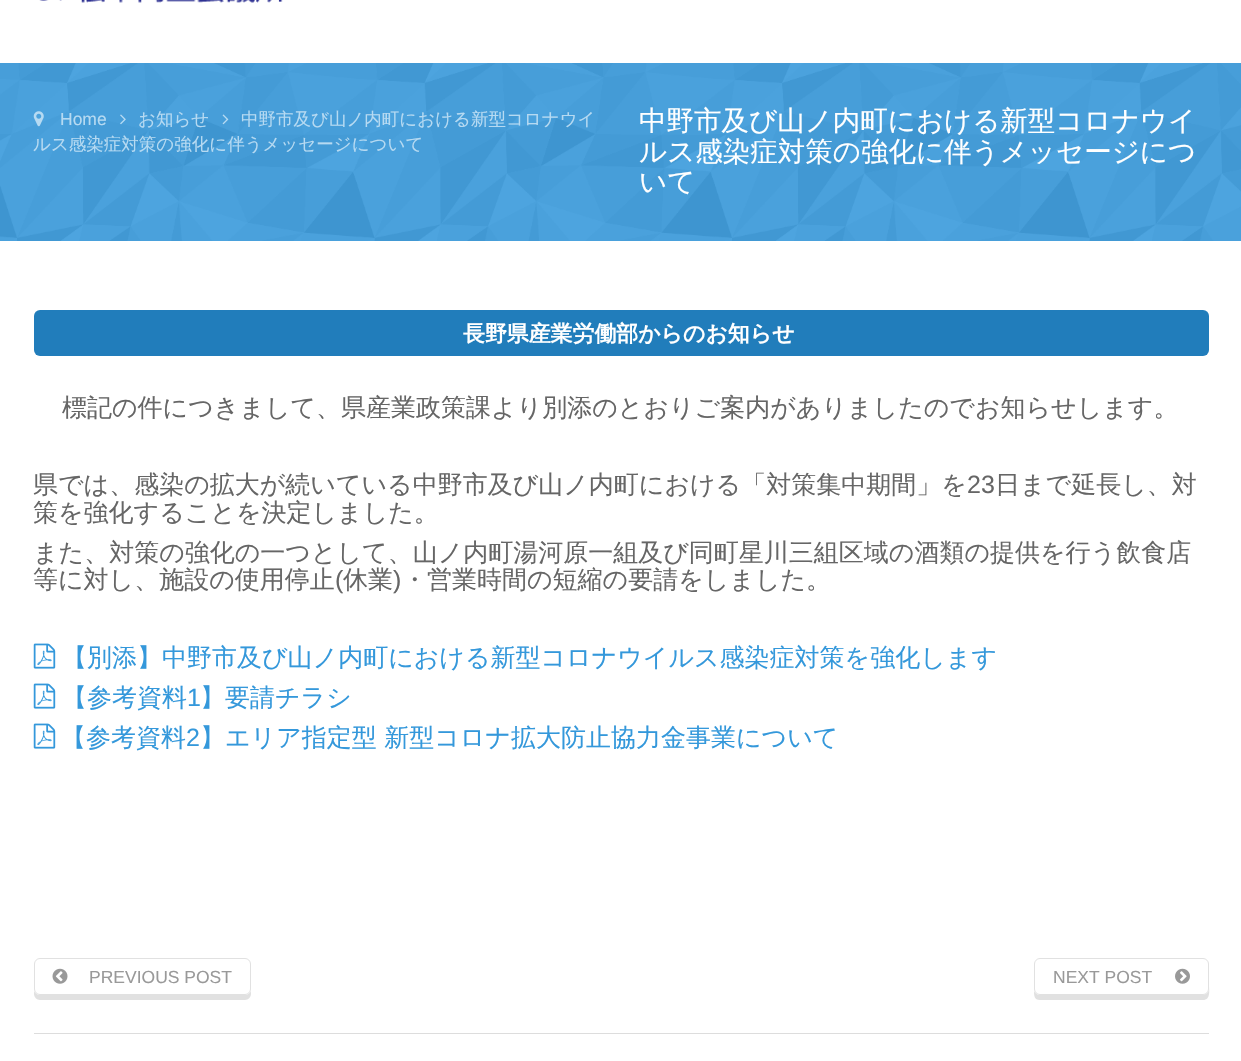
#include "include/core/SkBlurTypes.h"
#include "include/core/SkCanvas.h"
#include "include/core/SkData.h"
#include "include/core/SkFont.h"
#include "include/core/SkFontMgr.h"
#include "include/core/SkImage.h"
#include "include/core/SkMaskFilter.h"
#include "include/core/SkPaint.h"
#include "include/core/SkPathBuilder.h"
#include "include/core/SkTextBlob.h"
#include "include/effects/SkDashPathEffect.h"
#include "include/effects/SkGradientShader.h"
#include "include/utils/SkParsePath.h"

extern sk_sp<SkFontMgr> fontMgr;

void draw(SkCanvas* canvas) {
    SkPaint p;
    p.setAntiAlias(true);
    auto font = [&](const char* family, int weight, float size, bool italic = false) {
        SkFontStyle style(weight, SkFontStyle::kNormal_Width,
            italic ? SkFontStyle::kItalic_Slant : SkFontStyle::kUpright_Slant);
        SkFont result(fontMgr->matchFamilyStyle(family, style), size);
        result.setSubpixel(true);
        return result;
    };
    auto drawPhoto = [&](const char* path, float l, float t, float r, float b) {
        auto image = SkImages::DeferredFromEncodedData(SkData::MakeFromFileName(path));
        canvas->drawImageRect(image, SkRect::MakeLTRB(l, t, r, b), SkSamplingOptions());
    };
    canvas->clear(0xFFFFFFFF);
    drawPhoto("media/1.png", 39, 0, 283, 3);
    p.setColor(0xFF3498DB);
    canvas->drawRect(SkRect::MakeLTRB(0, 63, 1241, 241), p);
    drawPhoto("media/2.png", 0, 63, 1241, 241);
    drawPhoto("media/3.png", 33, 111, 44, 127);
    auto font1 = font("Liberation Sans", 400, 17.5f);
    p.setColor(0xFFB6DAF2);
    canvas->drawString("Home", 60, 125, font1, p);
    drawPhoto("media/4.png", 120, 114, 126, 125);
    auto font2 = font("WenQuanYi Zen Hei", 500, 17.5f);
    canvas->drawString("お知らせ", 138, 125, font2, p);
    drawPhoto("media/5.png", 222, 114, 229, 125);
    canvas->drawString("中野市及び山ノ内町における新型コロナウイ", 241, 125, font2, p);
    canvas->drawString("ルス感染症対策の強化に伴うメッセージについて", 33, 150, font2, p);
    auto font3 = font("WenQuanYi Zen Hei", 500, 27.5f);
    p.setColor(0xFFFFFFFF);
    {
        const struct { const char* s; float x, y; } items[] = {
            {"中野市及び山ノ内町における新型コロナウイ", 639, 130},
            {"ルス感染症対策の強化に伴うメッセージにつ", 639, 161},
            {"いて", 639, 191},
        };
        for (auto [s, x, y] : items) {
            canvas->drawString(s, x, y, font3, p);
        }
    }
    p.setColor(0xFF217DBB);
    canvas->drawRoundRect(SkRect::MakeLTRB(34, 310, 1209, 356), 6, 6, p);
    auto font4 = font("WenQuanYi Zen Hei", 700, 21.9f);
    p.setColor(0xFFFFFFFF);
    canvas->drawString("長野県産業労働部からのお知らせ", 463, 341, font4, p);
    auto font5 = font("WenQuanYi Zen Hei", 500, 25);
    p.setColor(0xFF666666);
    canvas->drawString("標記の件につきまして、県産業政策課より別添のとおりご案内がありましたのでお知らせします。", 62, 416, font5, p);
    canvas->drawString("県では、感染の拡大が続いている中野市及び山ノ内町における「対策集中期間」を", 33, 493, font5, p);
    auto font6 = font("Liberation Sans", 400, 25);
    canvas->drawString("23", 967, 493, font6, p);
    {
        const struct { const char* s; float x, y; } items[] = {
            {"日まで延長し、対", 995, 493},
            {"策を強化することを決定しました。", 33, 521},
            {"また、対策の強化の一つとして、山ノ内町湯河原一組及び同町星川三組区域の酒類の提供を行う飲食店", 33, 561},
            {"等に対し、施設の使用停止", 33, 588},
        };
        for (auto [s, x, y] : items) {
            canvas->drawString(s, x, y, font5, p);
        }
    }
    canvas->drawString("(", 335, 588, font6, p);
    canvas->drawString("休業", 343, 588, font5, p);
    canvas->drawString(")", 393, 588, font6, p);
    canvas->drawString("・営業時間の短縮の要請をしました。", 402, 588, font5, p);
    drawPhoto("media/6.png", 33, 643, 56, 669);
    p.setColor(0xFF3498DB);
    canvas->drawString("【別添】中野市及び山ノ内町における新型コロナウイルス感染症対策を強化します", 62, 666, font5, p);
    drawPhoto("media/6.png", 33, 683, 56, 709);
    canvas->drawString("【参考資料", 62, 706, font5, p);
    canvas->drawString("1", 187, 706, font6, p);
    canvas->drawString("】要請チラシ", 200, 706, font5, p);
    drawPhoto("media/6.png", 33, 723, 56, 749);
    canvas->drawString("【参考資料", 61, 746, font5, p);
    canvas->drawString("2", 186, 746, font6, p);
    canvas->drawString("】エリア指定型 新型コロナ拡大防止協力金事業について", 200, 746, font5, p);
    p.setColor(0xFFDDDDDD);
    canvas->drawRect(SkRect::MakeLTRB(34, 1033, 1209, 1034), p);
    p.setColor(0xFFE1E1E1);
    canvas->drawPath(SkPathBuilder().moveTo(34, 991).lineTo(34, 994).cubicTo(34, 997, 37, 1000, 40, 1000).lineTo(245, 1000).cubicTo(248, 1000, 251, 997, 251, 994).lineTo(251, 991).cubicTo(250, 993, 248, 995, 245, 995).lineTo(40, 995).cubicTo(37, 995, 35, 993, 34, 991).close().detach(), p);
    p.setColor(0xFFFFFFFF);
    canvas->drawRoundRect(SkRect::MakeLTRB(34.5f, 958.5f, 250.5f, 994.5f), 5.5f, 5.5f, p);
    p.setStyle(SkPaint::kStroke_Style);
    p.setStrokeWidth(1);
    p.setColor(0xFFE1E1E1);
    canvas->drawRoundRect(SkRect::MakeLTRB(34.5f, 958.5f, 250.5f, 994.5f), 5.5f, 5.5f, p);
    drawPhoto("media/7.png", 52, 968, 68, 984);
    p.setStyle(SkPaint::kFill_Style);
    p.setColor(0xFF999999);
    canvas->drawString("PREVIOUS POST", 89, 983, font1, p);
    p.setColor(0xFFE1E1E1);
    canvas->drawPath(SkPathBuilder().moveTo(1034, 991).cubicTo(1034, 995, 1034, 1000, 1040, 1000).lineTo(1203, 1000).cubicTo(1211, 1000, 1209, 990, 1209, 986).lineTo(1209, 967).lineTo(1209, 989).cubicTo(1209, 992, 1206, 995, 1202, 995).lineTo(1040, 995).cubicTo(1037, 995, 1035, 993, 1034, 991).close().detach(), p);
    p.setColor(0xFFFFFFFF);
    canvas->drawRoundRect(SkRect::MakeLTRB(1034.5f, 958.5f, 1208.5f, 994.5f), 5.5f, 5.5f, p);
    p.setStyle(SkPaint::kStroke_Style);
    p.setColor(0xFFE1E1E1);
    canvas->drawRoundRect(SkRect::MakeLTRB(1034.5f, 958.5f, 1208.5f, 994.5f), 5.5f, 5.5f, p);
    p.setStyle(SkPaint::kFill_Style);
    p.setColor(0xFF999999);
    canvas->drawString("NEXT POST", 1053, 983, font1, p);
    drawPhoto("media/8.png", 1175, 968, 1190, 984);
}
